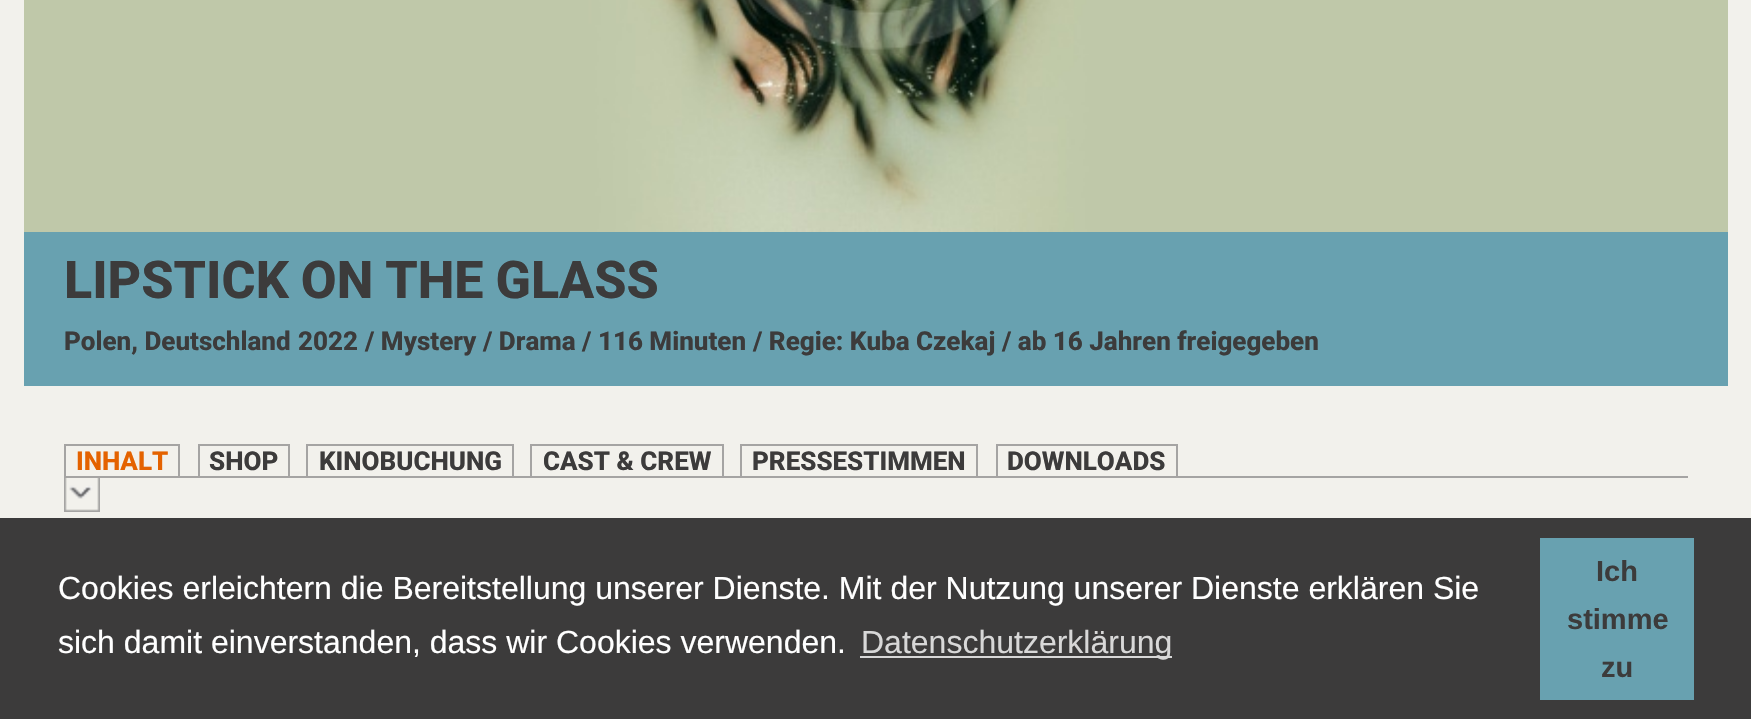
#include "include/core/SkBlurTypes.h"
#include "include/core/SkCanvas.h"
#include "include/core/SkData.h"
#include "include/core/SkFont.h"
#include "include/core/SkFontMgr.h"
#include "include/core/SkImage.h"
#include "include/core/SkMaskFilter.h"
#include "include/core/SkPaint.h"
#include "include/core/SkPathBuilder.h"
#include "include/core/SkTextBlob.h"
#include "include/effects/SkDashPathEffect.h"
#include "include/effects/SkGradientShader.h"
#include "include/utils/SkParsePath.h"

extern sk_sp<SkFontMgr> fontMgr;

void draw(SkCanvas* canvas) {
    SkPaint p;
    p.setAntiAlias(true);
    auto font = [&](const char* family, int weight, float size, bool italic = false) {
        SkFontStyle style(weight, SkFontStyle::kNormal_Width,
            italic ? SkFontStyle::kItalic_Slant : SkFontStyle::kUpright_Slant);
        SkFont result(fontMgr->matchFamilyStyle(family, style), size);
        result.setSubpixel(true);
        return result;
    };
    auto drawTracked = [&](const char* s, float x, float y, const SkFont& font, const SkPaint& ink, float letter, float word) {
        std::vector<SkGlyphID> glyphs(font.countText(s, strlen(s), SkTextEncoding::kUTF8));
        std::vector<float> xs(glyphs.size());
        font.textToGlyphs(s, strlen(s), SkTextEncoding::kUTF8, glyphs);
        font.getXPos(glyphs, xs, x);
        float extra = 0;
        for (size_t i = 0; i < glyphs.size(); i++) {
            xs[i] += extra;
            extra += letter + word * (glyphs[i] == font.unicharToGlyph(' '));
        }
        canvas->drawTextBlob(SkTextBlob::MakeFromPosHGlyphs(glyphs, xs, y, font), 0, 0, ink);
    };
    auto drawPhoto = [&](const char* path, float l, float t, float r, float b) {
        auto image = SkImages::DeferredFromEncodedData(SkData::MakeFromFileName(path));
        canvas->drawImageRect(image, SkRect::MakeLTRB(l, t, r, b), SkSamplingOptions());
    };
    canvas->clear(0xFFF2F1EC);
    drawPhoto("media/1.png", 24, 0, 1728, 232);
    drawPhoto("media/2.png", 753, 0, 1003, 54);
    p.setColor(0xFF68A1B0);
    canvas->drawRect(SkRect::MakeLTRB(24, 232, 1728, 386), p);
    auto font1 = font("Roboto", 800, 52);
    p.setColor(0xFF3C3B3B);
    drawTracked("LIPSTICK ON THE GLASS", 64, 298, font1, p, 0, -1);
    auto font2 = font("Roboto", 800, 26);
    {
        const struct { const char* s; float x, y; } items[] = {
            {"Polen, Deutschland", 64, 350},
            {"2022", 298, 350},
            {"/ Mystery", 365, 350},
            {"/ Drama / 116 Minuten", 483, 350},
            {"/ Regie: Kuba", 753, 350},
            {"Czekaj", 916, 350},
            {"/ ab 16 Jahren freigegeben", 1002, 350},
        };
        for (auto [s, x, y] : items) {
            canvas->drawString(s, x, y, font2, p);
        }
    }
    p.setColor(0xFFE46200);
    canvas->drawString("INHALT", 76, 470, font2, p);
    {
        const struct { float l, t, r, b; SkColor color; } items[] = {
            {64, 444, 180, 446, 0xFFA5A4A3},
            {64, 476, 1688, 478, 0xFFA5A4A3},
            {64, 444, 66, 478, 0xFFA5A4A3},
            {178, 444, 180, 478, 0xFFA5A4A3},
        };
        for (auto [l, t, r, b, color] : items) {
            p.setColor(color);
            canvas->drawRect(SkRect::MakeLTRB(l, t, r, b), p);
        }
    }
    p.setColor(0xFF3C3B3B);
    canvas->drawString("SHOP", 209, 470, font2, p);
    {
        const struct { float l, t, r, b; SkColor color; } items[] = {
            {198, 444, 290, 446, 0xFFA5A4A3},
            {198, 444, 200, 478, 0xFFA5A4A3},
            {288, 444, 290, 478, 0xFFA5A4A3},
        };
        for (auto [l, t, r, b, color] : items) {
            p.setColor(color);
            canvas->drawRect(SkRect::MakeLTRB(l, t, r, b), p);
        }
    }
    p.setColor(0xFF3C3B3B);
    canvas->drawString("KINOBUCHUNG", 319, 470, font2, p);
    {
        const struct { float l, t, r, b; SkColor color; } items[] = {
            {306, 444, 514, 446, 0xFFA5A4A3},
            {306, 444, 308, 478, 0xFFA5A4A3},
            {512, 444, 514, 478, 0xFFA5A4A3},
        };
        for (auto [l, t, r, b, color] : items) {
            p.setColor(color);
            canvas->drawRect(SkRect::MakeLTRB(l, t, r, b), p);
        }
    }
    p.setColor(0xFF3C3B3B);
    canvas->drawString("CAST & CREW", 543, 470, font2, p);
    {
        const struct { float l, t, r, b; SkColor color; } items[] = {
            {530, 444, 724, 446, 0xFFA5A4A3},
            {530, 444, 532, 478, 0xFFA5A4A3},
            {722, 444, 724, 478, 0xFFA5A4A3},
        };
        for (auto [l, t, r, b, color] : items) {
            p.setColor(color);
            canvas->drawRect(SkRect::MakeLTRB(l, t, r, b), p);
        }
    }
    p.setColor(0xFF3C3B3B);
    canvas->drawString("PRESSESTIMMEN", 752, 470, font2, p);
    {
        const struct { float l, t, r, b; SkColor color; } items[] = {
            {740, 444, 978, 446, 0xFFA5A4A3},
            {740, 444, 742, 478, 0xFFA5A4A3},
            {976, 444, 978, 478, 0xFFA5A4A3},
        };
        for (auto [l, t, r, b, color] : items) {
            p.setColor(color);
            canvas->drawRect(SkRect::MakeLTRB(l, t, r, b), p);
        }
    }
    p.setColor(0xFF3C3B3B);
    canvas->drawString("DOWNLOADS", 1007, 470, font2, p);
    {
        const struct { float l, t, r, b; SkColor color; } items[] = {
            {996, 444, 1178, 446, 0xFFA5A4A3},
            {996, 444, 998, 478, 0xFFA5A4A3},
            {1176, 444, 1178, 478, 0xFFA5A4A3},
        };
        for (auto [l, t, r, b, color] : items) {
            p.setColor(color);
            canvas->drawRect(SkRect::MakeLTRB(l, t, r, b), p);
        }
    }
    drawPhoto("media/3.png", 64, 478, 100, 512);
    p.setColor(0xFF3C3B3B);
    canvas->drawRect(SkRect::MakeLTRB(0, 518, 1751, 719), p);
    auto font3 = font("Liberation Sans", 400, 32);
    p.setColor(0xFFFFFFFF);
    canvas->drawString("Cookies erleichtern die Bereitstellung unserer Dienste. Mit der Nutzung unserer Dienste erklären Sie", 58, 599, font3, p);
    canvas->drawString("sich damit einverstanden, dass wir Cookies verwenden.", 58, 653, font3, p);
    p.setColor(0xFFD8D8D8);
    canvas->drawRect(SkRect::MakeLTRB(860, 656, 1172, 658), p);
    canvas->drawString("Datenschutzerklärung", 861, 653, font3, p);
    p.setColor(0xFF68A1B0);
    canvas->drawRect(SkRect::MakeLTRB(1540, 538, 1694, 700), p);
    auto font4 = font("Liberation Sans", 700, 29);
    p.setColor(0xFF3C3B3B);
    {
        const struct { const char* s; float x, y; } items[] = {
            {"Ich", 1596, 581},
            {"stimme", 1567, 629},
            {"zu", 1601, 677},
        };
        for (auto [s, x, y] : items) {
            canvas->drawString(s, x, y, font4, p);
        }
    }
}
